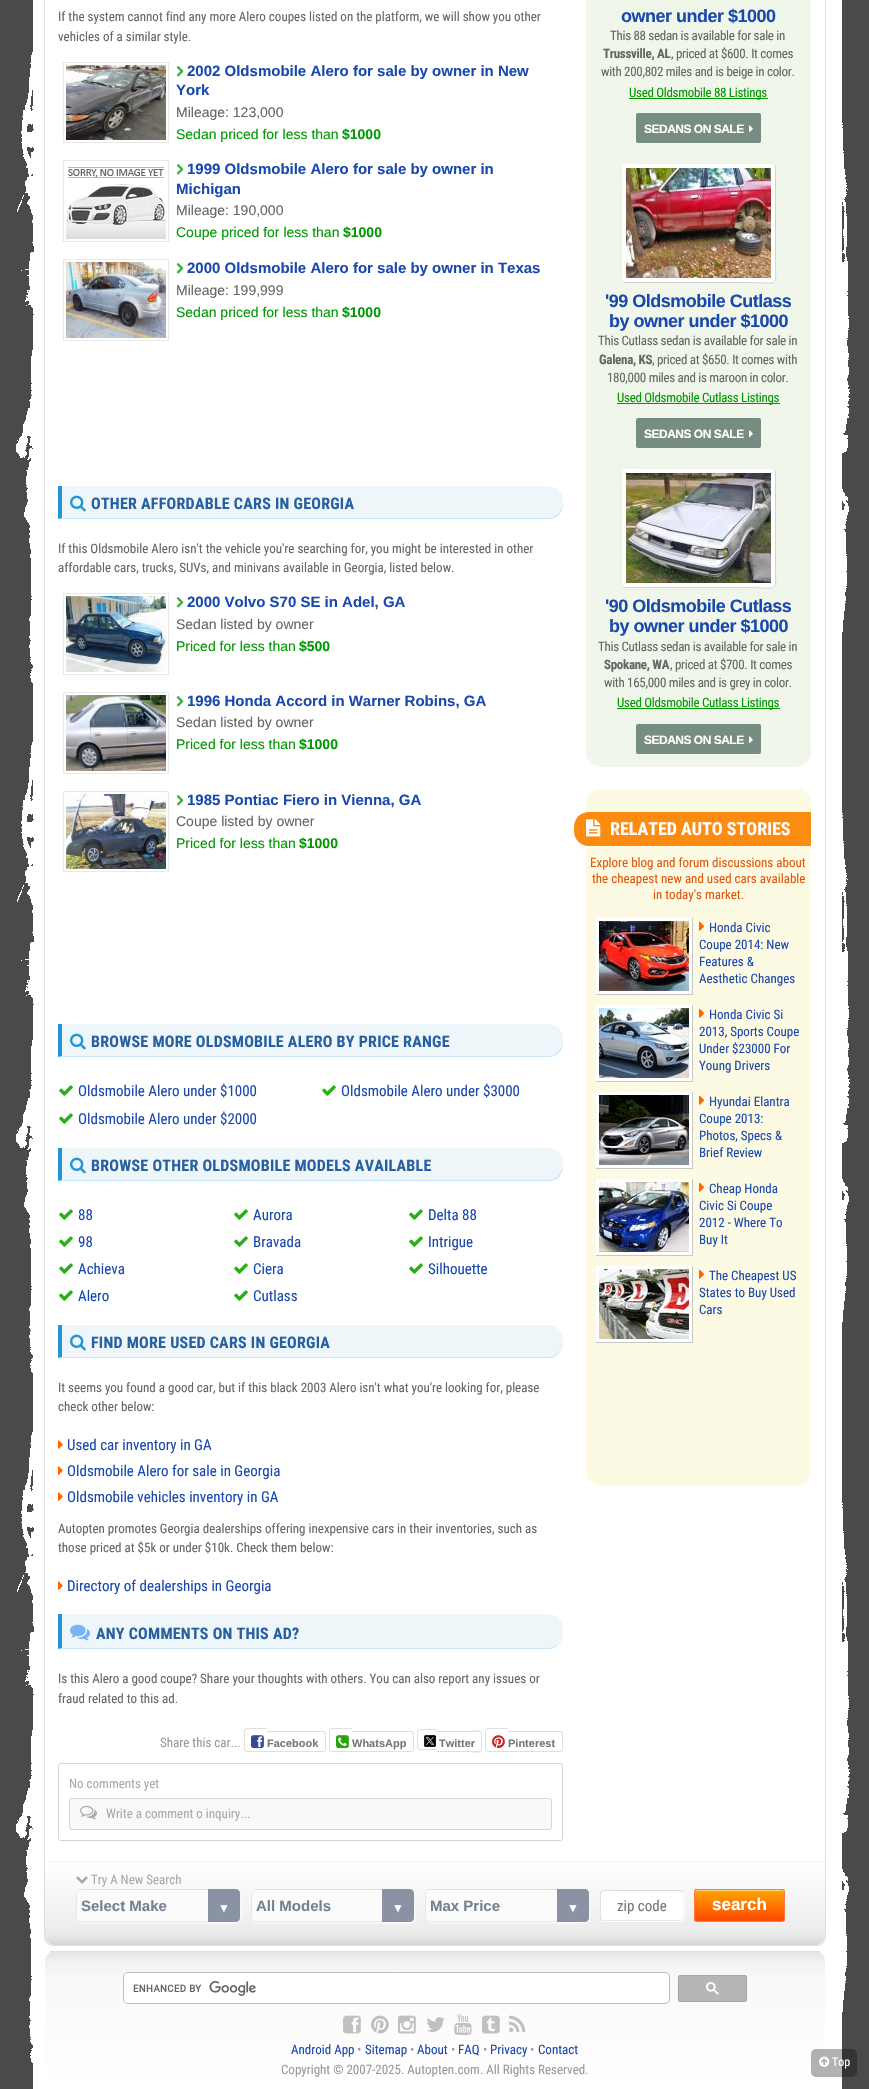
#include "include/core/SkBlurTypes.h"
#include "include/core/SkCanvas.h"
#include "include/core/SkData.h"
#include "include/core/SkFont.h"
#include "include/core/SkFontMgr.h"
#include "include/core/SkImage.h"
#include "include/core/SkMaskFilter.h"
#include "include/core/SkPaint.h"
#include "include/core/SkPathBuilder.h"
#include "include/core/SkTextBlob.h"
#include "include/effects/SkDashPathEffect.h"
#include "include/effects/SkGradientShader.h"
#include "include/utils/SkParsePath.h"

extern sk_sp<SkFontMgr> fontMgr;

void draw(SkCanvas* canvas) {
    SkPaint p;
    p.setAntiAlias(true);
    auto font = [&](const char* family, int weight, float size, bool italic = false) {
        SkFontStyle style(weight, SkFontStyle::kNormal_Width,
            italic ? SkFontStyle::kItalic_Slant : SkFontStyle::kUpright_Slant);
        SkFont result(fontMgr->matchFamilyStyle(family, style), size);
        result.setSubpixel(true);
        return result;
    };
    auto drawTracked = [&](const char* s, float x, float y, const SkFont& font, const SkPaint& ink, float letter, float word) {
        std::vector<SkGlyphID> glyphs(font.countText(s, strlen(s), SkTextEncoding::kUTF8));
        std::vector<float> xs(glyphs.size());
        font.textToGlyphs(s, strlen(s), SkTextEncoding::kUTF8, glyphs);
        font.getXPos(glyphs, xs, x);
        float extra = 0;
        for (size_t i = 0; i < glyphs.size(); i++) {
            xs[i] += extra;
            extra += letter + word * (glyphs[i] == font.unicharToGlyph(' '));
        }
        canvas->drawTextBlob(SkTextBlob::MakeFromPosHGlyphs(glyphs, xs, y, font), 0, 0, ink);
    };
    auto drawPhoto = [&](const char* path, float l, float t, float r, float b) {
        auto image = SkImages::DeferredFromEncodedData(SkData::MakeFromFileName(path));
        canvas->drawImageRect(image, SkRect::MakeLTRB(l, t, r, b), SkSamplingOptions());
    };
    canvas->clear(0xFF4A4A4A);
    drawPhoto("media/1.png", 16, 0, 850, 2089);
    p.setColor(0xFFDFDFDF);
    canvas->drawPath(SkPathBuilder(SkPathFillType::kEvenOdd).moveTo(44, -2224).lineTo(826, -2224).lineTo(826, 1936).cubicTo(826, 1942, 822, 1946, 816, 1946).lineTo(54, 1946).cubicTo(48, 1946, 44, 1942, 44, 1936).close().moveTo(45, -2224).lineTo(825, -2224).lineTo(825, 1936).cubicTo(825, 1941, 821, 1945, 816, 1945).lineTo(54, 1945).cubicTo(49, 1945, 45, 1941, 45, 1936).close().detach(), p);
    auto font1 = font("Roboto Condensed", 400, 13);
    p.setColor(0xFF666666);
    canvas->drawString("If the system cannot find any more Alero coupes listed on the platform, we will show you other", 58, 21, font1, p);
    canvas->drawString("vehicles of a similar style.", 58, 41, font1, p);
    p.setStyle(SkPaint::kStroke_Style);
    p.setStrokeWidth(1);
    p.setColor(0xFFE9E9E9);
    canvas->drawRect(SkRect::MakeLTRB(63.5f, 62.5f, 168.5f, 142.5f), p);
    drawPhoto("media/2.png", 66, 65, 166, 140);
    drawPhoto("media/3.png", 176, 66, 184, 77);
    auto font2 = font("Liberation Sans", 700, 15);
    p.setStyle(SkPaint::kFill_Style);
    p.setColor(0xFF1A49AD);
    canvas->drawString("2002 Oldsmobile Alero for sale by owner in New", 187, 76, font2, p);
    canvas->drawString("York", 176, 95, font2, p);
    auto font3 = font("Liberation Sans", 400, 14);
    p.setColor(0xFF666666);
    canvas->drawString("Mileage: 123,000", 176, 117, font3, p);
    p.setColor(0xFF009900);
    canvas->drawString("Sedan priced for less than", 176, 139, font3, p);
    auto font4 = font("Liberation Sans", 700, 14);
    canvas->drawString("$1000", 342, 139, font4, p);
    p.setStyle(SkPaint::kStroke_Style);
    p.setColor(0xFFE9E9E9);
    canvas->drawRect(SkRect::MakeLTRB(63.5f, 160.5f, 168.5f, 241.5f), p);
    drawPhoto("media/4.png", 66, 167, 166, 239);
    drawPhoto("media/3.png", 176, 164, 184, 175);
    p.setStyle(SkPaint::kFill_Style);
    p.setColor(0xFF1A49AD);
    canvas->drawString("1999 Oldsmobile Alero for sale by owner in", 187, 174, font2, p);
    canvas->drawString("Michigan", 176, 194, font2, p);
    p.setColor(0xFF666666);
    canvas->drawString("Mileage: 190,000", 176, 215, font3, p);
    p.setColor(0xFF009900);
    canvas->drawString("Coupe priced for less than", 176, 237, font3, p);
    canvas->drawString("$1000", 343, 237, font4, p);
    p.setStyle(SkPaint::kStroke_Style);
    p.setColor(0xFFE9E9E9);
    canvas->drawRect(SkRect::MakeLTRB(63.5f, 259.5f, 168.5f, 340.5f), p);
    drawPhoto("media/5.png", 66, 262, 166, 338);
    drawPhoto("media/3.png", 176, 263, 184, 274);
    p.setStyle(SkPaint::kFill_Style);
    p.setColor(0xFF1A49AD);
    canvas->drawString("2000 Oldsmobile Alero for sale by owner in Texas", 187, 273, font2, p);
    p.setColor(0xFF666666);
    canvas->drawString("Mileage: 199,999", 176, 295, font3, p);
    p.setColor(0xFF009900);
    canvas->drawString("Sedan priced for less than", 176, 317, font3, p);
    canvas->drawString("$1000", 342, 317, font4, p);
    p.setColor(0xFFEFF6FA);
    canvas->drawPath(SkPathBuilder().moveTo(58, 486).lineTo(548, 486).cubicTo(556.5f, 486, 563, 492.5f, 563, 501).lineTo(563, 504).cubicTo(563, 512.5f, 556.5f, 519, 548, 519).lineTo(58, 519).close().detach(), p);
    p.setColor(0xFFC7E7FD);
    canvas->drawPath(SkPathBuilder().moveTo(62, 518).lineTo(551, 518).cubicTo(558, 516, 562, 510, 563, 504).cubicTo(563, 513, 557, 519, 548, 519).lineTo(58, 519).close().detach(), p);
    p.setColor(0xFF2495D4);
    canvas->drawPath(SkPathBuilder().moveTo(58, 486).lineTo(62, 486).lineTo(62, 518).lineTo(58, 519).close().detach(), p);
    drawPhoto("media/6.png", 70, 495, 86, 512);
    auto font5 = font("Roboto Condensed", 700, 16);
    p.setColor(0xFF2660A0);
    drawTracked("OTHER AFFORDABLE CARS IN GEORGIA", 91, 509, font5, p, 0.25f, 0);
    p.setColor(0xFF666666);
    canvas->drawString("If this Oldsmobile Alero isn't the vehicle you're searching for, you might be interested in other", 58, 553, font1, p);
    canvas->drawString("affordable cars, trucks, SUVs, and minivans available in Georgia, listed below.", 58, 572, font1, p);
    p.setStyle(SkPaint::kStroke_Style);
    p.setColor(0xFFE9E9E9);
    canvas->drawRect(SkRect::MakeLTRB(63.5f, 593.5f, 168.5f, 674.5f), p);
    drawPhoto("media/7.png", 66, 596, 166, 672);
    drawPhoto("media/3.png", 176, 597, 184, 608);
    p.setStyle(SkPaint::kFill_Style);
    p.setColor(0xFF1A49AD);
    canvas->drawString("2000 Volvo S70 SE in Adel, GA", 187, 607, font2, p);
    p.setColor(0xFF666666);
    canvas->drawString("Sedan listed by owner", 176, 629, font3, p);
    p.setColor(0xFF009900);
    canvas->drawString("Priced for less than", 176, 651, font3, p);
    canvas->drawString("$500", 299, 651, font4, p);
    p.setStyle(SkPaint::kStroke_Style);
    p.setColor(0xFFE9E9E9);
    canvas->drawRect(SkRect::MakeLTRB(63.5f, 692.5f, 168.5f, 773.5f), p);
    drawPhoto("media/8.png", 66, 695, 166, 771);
    drawPhoto("media/3.png", 176, 696, 184, 707);
    p.setStyle(SkPaint::kFill_Style);
    p.setColor(0xFF1A49AD);
    canvas->drawString("1996 Honda Accord in Warner Robins, GA", 187, 706, font2, p);
    p.setColor(0xFF666666);
    canvas->drawString("Sedan listed by owner", 176, 727, font3, p);
    p.setColor(0xFF009900);
    canvas->drawString("Priced for less than", 176, 749, font3, p);
    canvas->drawString("$1000", 299, 749, font4, p);
    p.setStyle(SkPaint::kStroke_Style);
    p.setColor(0xFFE9E9E9);
    canvas->drawRect(SkRect::MakeLTRB(63.5f, 791.5f, 168.5f, 871.5f), p);
    drawPhoto("media/9.png", 66, 794, 166, 869);
    drawPhoto("media/3.png", 176, 795, 184, 806);
    p.setStyle(SkPaint::kFill_Style);
    p.setColor(0xFF1A49AD);
    canvas->drawString("1985 Pontiac Fiero in Vienna, GA", 187, 805, font2, p);
    p.setColor(0xFF666666);
    canvas->drawString("Coupe listed by owner", 176, 826, font3, p);
    p.setColor(0xFF009900);
    canvas->drawString("Priced for less than", 176, 848, font3, p);
    canvas->drawString("$1000", 299, 848, font4, p);
    p.setColor(0xFFEFF6FA);
    canvas->drawPath(SkPathBuilder().moveTo(58, 1024).lineTo(548, 1024).cubicTo(556.5f, 1024, 563, 1030.5f, 563, 1039).lineTo(563, 1042).cubicTo(563, 1050.5f, 556.5f, 1057, 548, 1057).lineTo(58, 1057).close().detach(), p);
    p.setColor(0xFFC7E7FD);
    canvas->drawPath(SkPathBuilder().moveTo(62, 1056).lineTo(551, 1056).cubicTo(558, 1054, 562, 1048, 563, 1042).cubicTo(563, 1051, 557, 1057, 548, 1057).lineTo(58, 1057).close().detach(), p);
    p.setColor(0xFF2495D4);
    canvas->drawPath(SkPathBuilder().moveTo(58, 1024).lineTo(62, 1024).lineTo(62, 1056).lineTo(58, 1057).close().detach(), p);
    drawPhoto("media/6.png", 70, 1033, 86, 1050);
    p.setColor(0xFF2660A0);
    drawTracked("BROWSE MORE OLDSMOBILE ALERO BY PRICE RANGE", 91, 1047, font5, p, 0.25f, 0);
    drawPhoto("media/10.png", 59, 1085, 73, 1096);
    auto font6 = font("Roboto Condensed", 400, 15);
    p.setColor(0xFF1A49AD);
    canvas->drawString("Oldsmobile Alero under $1000", 78, 1096, font6, p);
    drawPhoto("media/10.png", 322, 1085, 336, 1096);
    canvas->drawString("Oldsmobile Alero under $3000", 341, 1096, font6, p);
    drawPhoto("media/10.png", 59, 1113, 73, 1124);
    canvas->drawString("Oldsmobile Alero under $2000", 78, 1124, font6, p);
    p.setColor(0xFFEFF6FA);
    canvas->drawPath(SkPathBuilder().moveTo(58, 1148).lineTo(548, 1148).cubicTo(556.5f, 1148, 563, 1154.5f, 563, 1163).lineTo(563, 1166).cubicTo(563, 1174.5f, 556.5f, 1181, 548, 1181).lineTo(58, 1181).close().detach(), p);
    p.setColor(0xFFC7E7FD);
    canvas->drawPath(SkPathBuilder().moveTo(62, 1180).lineTo(551, 1180).cubicTo(558, 1178, 562, 1172, 563, 1166).cubicTo(563, 1175, 557, 1181, 548, 1181).lineTo(58, 1181).close().detach(), p);
    p.setColor(0xFF2495D4);
    canvas->drawPath(SkPathBuilder().moveTo(58, 1148).lineTo(62, 1148).lineTo(62, 1180).lineTo(58, 1181).close().detach(), p);
    drawPhoto("media/6.png", 70, 1157, 86, 1174);
    p.setColor(0xFF2660A0);
    drawTracked("BROWSE OTHER OLDSMOBILE MODELS AVAILABLE", 91, 1171, font5, p, 0.25f, 0);
    drawPhoto("media/10.png", 59, 1209, 73, 1220);
    p.setColor(0xFF1A49AD);
    canvas->drawString("88", 78, 1220, font6, p);
    drawPhoto("media/10.png", 234, 1209, 248, 1220);
    canvas->drawString("Aurora", 253, 1220, font6, p);
    drawPhoto("media/10.png", 409, 1209, 423, 1220);
    canvas->drawString("Delta 88", 428, 1220, font6, p);
    drawPhoto("media/10.png", 59, 1236, 73, 1247);
    canvas->drawString("98", 78, 1247, font6, p);
    drawPhoto("media/10.png", 234, 1236, 248, 1247);
    canvas->drawString("Bravada", 253, 1247, font6, p);
    drawPhoto("media/10.png", 409, 1236, 423, 1247);
    canvas->drawString("Intrigue", 428, 1247, font6, p);
    drawPhoto("media/10.png", 59, 1263, 73, 1274);
    canvas->drawString("Achieva", 78, 1274, font6, p);
    drawPhoto("media/10.png", 234, 1263, 248, 1274);
    canvas->drawString("Ciera", 253, 1274, font6, p);
    drawPhoto("media/10.png", 409, 1263, 423, 1274);
    canvas->drawString("Silhouette", 428, 1274, font6, p);
    drawPhoto("media/10.png", 59, 1290, 73, 1301);
    canvas->drawString("Alero", 78, 1301, font6, p);
    drawPhoto("media/10.png", 234, 1290, 248, 1301);
    canvas->drawString("Cutlass", 253, 1301, font6, p);
    p.setColor(0xFFEFF6FA);
    canvas->drawPath(SkPathBuilder().moveTo(58, 1325).lineTo(548, 1325).cubicTo(556.5f, 1325, 563, 1331.5f, 563, 1340).lineTo(563, 1343).cubicTo(563, 1351.5f, 556.5f, 1358, 548, 1358).lineTo(58, 1358).close().detach(), p);
    p.setColor(0xFFC7E7FD);
    canvas->drawPath(SkPathBuilder().moveTo(62, 1357).lineTo(551, 1357).cubicTo(558, 1355, 562, 1349, 563, 1343).cubicTo(563, 1348, 557, 1358, 551, 1358).lineTo(58, 1358).close().detach(), p);
    p.setColor(0xFF2495D4);
    canvas->drawPath(SkPathBuilder().moveTo(58, 1325).lineTo(58, 1358).lineTo(62, 1357).lineTo(62, 1325).close().detach(), p);
    drawPhoto("media/6.png", 70, 1334, 86, 1351);
    p.setColor(0xFF2660A0);
    drawTracked("FIND MORE USED CARS IN GEORGIA", 91, 1348, font5, p, 0.25f, 0);
    p.setColor(0xFF666666);
    canvas->drawString("It seems you found a good car, but if this black 2003 Alero isn't what you're looking for, please", 58, 1392, font1, p);
    canvas->drawString("check other below:", 58, 1411, font1, p);
    drawPhoto("media/11.png", 58, 1440, 63, 1449);
    p.setColor(0xFF1A49AD);
    canvas->drawString("Used car inventory in GA", 67, 1450, font6, p);
    drawPhoto("media/11.png", 58, 1466, 63, 1475);
    canvas->drawString("Oldsmobile Alero for sale in Georgia", 67, 1476, font6, p);
    drawPhoto("media/11.png", 58, 1492, 63, 1501);
    canvas->drawString("Oldsmobile vehicles inventory in GA", 67, 1502, font6, p);
    p.setColor(0xFF666666);
    canvas->drawString("Autopten promotes Georgia dealerships offering inexpensive cars in their inventories, such as", 58, 1533, font1, p);
    canvas->drawString("those priced at $5k or under $10k. Check them below:", 58, 1552, font1, p);
    drawPhoto("media/11.png", 58, 1581, 63, 1590);
    p.setColor(0xFF1A49AD);
    canvas->drawString("Directory of dealerships in Georgia", 67, 1591, font6, p);
    p.setColor(0xFFEFF6FA);
    canvas->drawPath(SkPathBuilder().moveTo(58, 1614).lineTo(548, 1614).cubicTo(556.5f, 1614, 563, 1620.5f, 563, 1629).lineTo(563, 1634).cubicTo(563, 1642.5f, 556.5f, 1649, 548, 1649).lineTo(58, 1649).close().detach(), p);
    p.setColor(0xFFC7E7FD);
    canvas->drawPath(SkPathBuilder().moveTo(548, 1649).cubicTo(556, 1649, 562, 1643, 563, 1635).cubicTo(562, 1643, 556, 1648, 548, 1648).lineTo(62, 1648).lineTo(58, 1649).close().detach(), p);
    p.setColor(0xFF2495D4);
    canvas->drawPath(SkPathBuilder().moveTo(58, 1614).lineTo(62, 1614).lineTo(62, 1648).lineTo(58, 1649).close().detach(), p);
    drawPhoto("media/12.png", 70, 1624, 90, 1641);
    p.setColor(0xFF2660A0);
    drawTracked("ANY COMMENTS ON THIS AD?", 96, 1639, font5, p, 0.25f, 0);
    p.setColor(0xFF666666);
    canvas->drawString("Is this Alero a good coupe? Share your thoughts with others. You can also report any issues or", 58, 1683, font1, p);
    canvas->drawString("fraud related to this ad.", 58, 1703, font1, p);
    p.setColor(0xFF999999);
    canvas->drawString("Share this car...", 160, 1747, font1, p);
    p.setColor(0xFFDFDFDF);
    canvas->drawPath(SkPathBuilder(SkPathFillType::kEvenOdd).moveTo(247, 1728).lineTo(267, 1728).lineTo(267, 1752).lineTo(247, 1752).cubicTo(245.5f, 1752, 244, 1750.5f, 244, 1749).lineTo(244, 1731).cubicTo(244, 1729.5f, 245.5f, 1728, 247, 1728).close().moveTo(247, 1729).lineTo(267, 1729).lineTo(267, 1751).lineTo(247, 1751).cubicTo(246, 1751, 245, 1750, 245, 1749).lineTo(245, 1731).cubicTo(245, 1730, 246, 1729, 247, 1729).close().detach(), p);
    drawPhoto("media/13.png", 251, 1735, 264, 1749);
    canvas->drawPath(SkPathBuilder(SkPathFillType::kEvenOdd).moveTo(267, 1731).lineTo(323, 1731).cubicTo(325, 1731, 326, 1732, 326, 1734).lineTo(326, 1749).cubicTo(326, 1751, 325, 1752, 323, 1752).lineTo(267, 1752).close().moveTo(267, 1732).lineTo(323, 1732).cubicTo(324, 1732, 325, 1733, 325, 1734).lineTo(325, 1749).cubicTo(325, 1750, 324, 1751, 323, 1751).lineTo(267, 1751).close().detach(), p);
    auto font7 = font("Liberation Sans", 700, 11);
    p.setColor(0xFF777777);
    canvas->drawString("Facebook", 267, 1747, font7, p);
    p.setColor(0xFFDFDFDF);
    canvas->drawPath(SkPathBuilder(SkPathFillType::kEvenOdd).moveTo(332, 1728).lineTo(352, 1728).lineTo(352, 1752).lineTo(332, 1752).cubicTo(330.5f, 1752, 329, 1750.5f, 329, 1749).lineTo(329, 1731).cubicTo(329, 1729.5f, 330.5f, 1728, 332, 1728).close().moveTo(332, 1729).lineTo(352, 1729).lineTo(352, 1751).lineTo(332, 1751).cubicTo(331, 1751, 330, 1750, 330, 1749).lineTo(330, 1731).cubicTo(330, 1730, 331, 1729, 332, 1729).close().detach(), p);
    drawPhoto("media/14.png", 336, 1735, 349, 1749);
    canvas->drawPath(SkPathBuilder(SkPathFillType::kEvenOdd).moveTo(352, 1731).lineTo(411, 1731).cubicTo(413, 1731, 414, 1732, 414, 1734).lineTo(414, 1749).cubicTo(414, 1751, 413, 1752, 411, 1752).lineTo(352, 1752).close().moveTo(352, 1732).lineTo(411, 1732).cubicTo(412, 1732, 413, 1733, 413, 1734).lineTo(413, 1749).cubicTo(413, 1750, 412, 1751, 411, 1751).lineTo(352, 1751).close().detach(), p);
    p.setColor(0xFF777777);
    canvas->drawString("WhatsApp", 352, 1747, font7, p);
    p.setColor(0xFFDFDFDF);
    canvas->drawPath(SkPathBuilder(SkPathFillType::kEvenOdd).moveTo(420, 1729).lineTo(436, 1729).lineTo(436, 1750).lineTo(420, 1750).cubicTo(418.5f, 1750, 417, 1748.5f, 417, 1747).lineTo(417, 1732).cubicTo(417, 1730.5f, 418.5f, 1729, 420, 1729).close().moveTo(420, 1730).lineTo(436, 1730).lineTo(436, 1749).lineTo(420, 1749).cubicTo(419, 1749, 418, 1748, 418, 1747).lineTo(418, 1732).cubicTo(418, 1731, 419, 1730, 420, 1730).close().detach(), p);
    drawPhoto("media/15.png", 424, 1735, 436, 1747);
    canvas->drawPath(SkPathBuilder(SkPathFillType::kEvenOdd).moveTo(436, 1731).lineTo(465, 1731).cubicTo(482, 1731, 482, 1727, 482, 1742).cubicTo(482, 1756, 482, 1752, 465, 1752).lineTo(436, 1752).close().moveTo(436, 1732).lineTo(479, 1732).cubicTo(480, 1732, 481, 1733, 481, 1734).lineTo(481, 1749).cubicTo(481, 1750, 480, 1751, 479, 1751).lineTo(436, 1751).close().detach(), p);
    p.setColor(0xFF777777);
    canvas->drawString("Twitter", 439, 1747, font7, p);
    p.setColor(0xFFDFDFDF);
    canvas->drawPath(SkPathBuilder(SkPathFillType::kEvenOdd).moveTo(488, 1728).lineTo(508, 1728).lineTo(508, 1752).lineTo(488, 1752).cubicTo(486.5f, 1752, 485, 1750.5f, 485, 1749).lineTo(485, 1731).cubicTo(485, 1729.5f, 486.5f, 1728, 488, 1728).close().moveTo(488, 1729).lineTo(508, 1729).lineTo(508, 1751).lineTo(488, 1751).cubicTo(487, 1751, 486, 1750, 486, 1749).lineTo(486, 1731).cubicTo(486, 1730, 487, 1729, 488, 1729).close().detach(), p);
    drawPhoto("media/16.png", 492, 1735, 505, 1749);
    canvas->drawPath(SkPathBuilder(SkPathFillType::kEvenOdd).moveTo(508, 1731).lineTo(560, 1731).cubicTo(562, 1731, 563, 1732, 563, 1734).lineTo(563, 1749).cubicTo(563, 1751, 562, 1752, 560, 1752).lineTo(508, 1752).close().moveTo(508, 1732).lineTo(560, 1732).cubicTo(561, 1732, 562, 1733, 562, 1734).lineTo(562, 1749).cubicTo(562, 1750, 561, 1751, 560, 1751).lineTo(508, 1751).close().detach(), p);
    p.setColor(0xFF777777);
    canvas->drawString("Pinterest", 508, 1747, font7, p);
    p.setStyle(SkPaint::kStroke_Style);
    p.setColor(0xFFD3D6DB);
    canvas->drawRoundRect(SkRect::MakeLTRB(58.5f, 1763.5f, 562.5f, 1840.5f), 2.5f, 2.5f, p);
    p.setStyle(SkPaint::kFill_Style);
    p.setColor(0xFFAAAAAA);
    canvas->drawString("No comments yet", 69, 1788, font1, p);
    p.setColor(0xFFF9F9F9);
    canvas->drawRoundRect(SkRect::MakeLTRB(69.5f, 1798.5f, 551.5f, 1829.5f), 2.5f, 2.5f, p);
    p.setStyle(SkPaint::kStroke_Style);
    p.setColor(0xFFD3D7DC);
    canvas->drawRoundRect(SkRect::MakeLTRB(69.5f, 1798.5f, 551.5f, 1829.5f), 2.5f, 2.5f, p);
    drawPhoto("media/17.png", 80, 1805, 97, 1820);
    p.setStyle(SkPaint::kFill_Style);
    p.setColor(0xFFAAAAAA);
    canvas->drawString("Write a comment o inquiry...", 106, 1818, font1, p);
    p.setColor(0xFFF0F6EA);
    canvas->drawRoundRect(SkRect::MakeLTRB(586, -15, 811, 767), 15, 15, p);
    auto font8 = font("Liberation Sans", 700, 18);
    p.setColor(0xFF1A49AD);
    drawTracked("owner under $1000", 621, 22, font8, p, -0.5f, 0);
    p.setColor(0xFF666666);
    drawTracked("This 88 sedan is available for sale in", 610, 40, font1, p, -0.3f, 0);
    auto font9 = font("Roboto Condensed", 700, 13);
    drawTracked("Trussville, AL", 603, 58, font9, p, -0.3f, 0);
    drawTracked(", priced at $600. It comes", 671, 58, font1, p, -0.3f, 0);
    drawTracked("with 200,802 miles and is beige in color.", 601, 76, font1, p, -0.3f, 0);
    p.setColor(0xFF009900);
    canvas->drawRect(SkRect::MakeLTRB(629, 98, 768, 99), p);
    drawTracked("Used Oldsmobile 88 Listings", 629, 97, font1, p, -0.3f, 0);
    p.setColor(0xFF788D82);
    canvas->drawRoundRect(SkRect::MakeLTRB(636, 113, 761, 143), 2, 2, p);
    auto font10 = font("Liberation Sans", 700, 12);
    p.setColor(0xFFFFFFFF);
    drawTracked("SEDANS ON SALE", 644, 133, font10, p, -0.5f, 0);
    drawPhoto("media/18.png", 749, 125, 753, 133);
    canvas->drawRoundRect(SkRect::MakeLTRB(621, 163, 776, 283), 4, 4, p);
    p.setStyle(SkPaint::kStroke_Style);
    p.setColor(0xFFD2D2D2);
    canvas->drawPath(SkPathBuilder().moveTo(774.5f, 164.5f).lineTo(775.5f, 167).lineTo(775.5f, 260.5f).cubicTo(775.5f, 289, 780, 282.5f, 747.5f, 282.5f).lineTo(625, 282.5f).lineTo(622.5f, 281.5f).detach(), p);
    p.setColor(0xFFEEEEEE);
    canvas->drawPath(SkPathBuilder().moveTo(622.5f, 281.5f).lineTo(621.5f, 279).lineTo(621.5f, 185.5f).cubicTo(621.5f, 157, 617, 163.5f, 649.5f, 163.5f).lineTo(772, 163.5f).lineTo(774.5f, 164.5f).detach(), p);
    drawPhoto("media/19.png", 626, 168, 771, 278);
    p.setStyle(SkPaint::kFill_Style);
    p.setColor(0xFF1A49AD);
    drawTracked("'99 Oldsmobile Cutlass", 605, 307, font8, p, -0.5f, 0);
    drawTracked("by owner under $1000", 609, 327, font8, p, -0.5f, 0);
    p.setColor(0xFF666666);
    drawTracked("This Cutlass sedan is available for sale in", 598, 345, font1, p, -0.3f, 0);
    drawTracked("Galena, KS", 599, 364, font9, p, -0.3f, 0);
    drawTracked(", priced at $650. It comes with", 652, 364, font1, p, -0.3f, 0);
    drawTracked("180,000 miles and is maroon in color.", 607, 382, font1, p, -0.3f, 0);
    p.setColor(0xFF009900);
    canvas->drawRect(SkRect::MakeLTRB(617, 403, 780, 404), p);
    drawTracked("Used Oldsmobile Cutlass Listings", 617, 402, font1, p, -0.3f, 0);
    p.setColor(0xFF788D82);
    canvas->drawRoundRect(SkRect::MakeLTRB(636, 418, 761, 448), 2, 2, p);
    p.setColor(0xFFFFFFFF);
    drawTracked("SEDANS ON SALE", 644, 438, font10, p, -0.5f, 0);
    drawPhoto("media/18.png", 749, 430, 753, 438);
    canvas->drawRoundRect(SkRect::MakeLTRB(621, 468, 776, 588), 4, 4, p);
    p.setStyle(SkPaint::kStroke_Style);
    p.setColor(0xFFD2D2D2);
    canvas->drawPath(SkPathBuilder().moveTo(774.5f, 469.5f).lineTo(775.5f, 472).lineTo(775.5f, 565.5f).cubicTo(775.5f, 594, 780, 587.5f, 747.5f, 587.5f).lineTo(625, 587.5f).lineTo(622.5f, 586.5f).detach(), p);
    p.setColor(0xFFEEEEEE);
    canvas->drawPath(SkPathBuilder().moveTo(622.5f, 586.5f).lineTo(621.5f, 584).lineTo(621.5f, 490.5f).cubicTo(621.5f, 462, 617, 468.5f, 649.5f, 468.5f).lineTo(772, 468.5f).lineTo(774.5f, 469.5f).detach(), p);
    drawPhoto("media/20.png", 626, 473, 771, 583);
    p.setStyle(SkPaint::kFill_Style);
    p.setColor(0xFF1A49AD);
    drawTracked("'90 Oldsmobile Cutlass", 605, 612, font8, p, -0.5f, 0);
    drawTracked("by owner under $1000", 609, 632, font8, p, -0.5f, 0);
    p.setColor(0xFF666666);
    drawTracked("This Cutlass sedan is available for sale in", 598, 651, font1, p, -0.3f, 0);
    drawTracked("Spokane, WA", 604, 669, font9, p, -0.3f, 0);
    drawTracked(", priced at $700. It comes", 670, 669, font1, p, -0.3f, 0);
    drawTracked("with 165,000 miles and is grey in color.", 604, 687, font1, p, -0.3f, 0);
    p.setColor(0xFF009900);
    canvas->drawRect(SkRect::MakeLTRB(617, 708, 780, 709), p);
    drawTracked("Used Oldsmobile Cutlass Listings", 617, 707, font1, p, -0.3f, 0);
    p.setColor(0xFF788D82);
    canvas->drawRoundRect(SkRect::MakeLTRB(636, 724, 761, 754), 2, 2, p);
    p.setColor(0xFFFFFFFF);
    drawTracked("SEDANS ON SALE", 644, 744, font10, p, -0.5f, 0);
    drawPhoto("media/18.png", 749, 736, 753, 744);
    p.setColor(0xFFFDFAE4);
    canvas->drawRoundRect(SkRect::MakeLTRB(586, 789, 811, 1486), 15, 15, p);
    p.setColor(0xFFFC8B12);
    canvas->drawPath(SkPathBuilder().moveTo(589, 812).lineTo(811, 812).lineTo(811, 846).lineTo(589, 846).cubicTo(580.5f, 846, 574, 839.5f, 574, 831).lineTo(574, 827).cubicTo(574, 818.5f, 580.5f, 812, 589, 812).close().detach(), p);
    drawPhoto("media/21.png", 586, 819, 601, 837);
    auto font11 = font("Roboto Condensed", 700, 18);
    p.setColor(0xFFFFFFFF);
    canvas->drawString("RELATED AUTO STORIES", 610, 835, font11, p);
    p.setColor(0xFFE0580B);
    {
        const struct { const char* s; float x, y; } items[] = {
            {"Explore blog and forum discussions about", 590, 867},
            {"the cheapest new and used cars available", 592, 883},
            {"in today's market.", 653, 899},
        };
        for (auto [s, x, y] : items) {
            canvas->drawString(s, x, y, font1, p);
        }
    }
    p.setColor(0xFFFFFFFF);
    canvas->drawRect(SkRect::MakeLTRB(596, 918, 692, 994), p);
    p.setColor(0xFFC7C7C7);
    canvas->drawRect(SkRect::MakeLTRB(692, 918, 693, 995), p);
    drawPhoto("media/22.png", 599, 921, 689, 991);
    canvas->drawRect(SkRect::MakeLTRB(596, 994, 693, 995), p);
    drawPhoto("media/23.png", 699, 921, 705, 931);
    p.setColor(0xFF1A49AD);
    {
        const struct { const char* s; float x, y; } items[] = {
            {"Honda Civic", 709, 932},
            {"Coupe 2014: New", 699, 949},
            {"Features &", 699, 966},
            {"Aesthetic Changes", 699, 983},
        };
        for (auto [s, x, y] : items) {
            canvas->drawString(s, x, y, font1, p);
        }
    }
    p.setColor(0xFFFFFFFF);
    canvas->drawRect(SkRect::MakeLTRB(596, 1005, 692, 1081), p);
    p.setColor(0xFFC7C7C7);
    canvas->drawRect(SkRect::MakeLTRB(692, 1005, 693, 1082), p);
    drawPhoto("media/24.png", 599, 1008, 689, 1078);
    canvas->drawRect(SkRect::MakeLTRB(596, 1081, 693, 1082), p);
    drawPhoto("media/23.png", 699, 1008, 705, 1018);
    p.setColor(0xFF1A49AD);
    {
        const struct { const char* s; float x, y; } items[] = {
            {"Honda Civic Si", 709, 1019},
            {"2013, Sports Coupe", 699, 1036},
            {"Under $23000 For", 699, 1053},
            {"Young Drivers", 699, 1070},
        };
        for (auto [s, x, y] : items) {
            canvas->drawString(s, x, y, font1, p);
        }
    }
    p.setColor(0xFFFFFFFF);
    canvas->drawRect(SkRect::MakeLTRB(596, 1092, 692, 1168), p);
    p.setColor(0xFFC7C7C7);
    canvas->drawRect(SkRect::MakeLTRB(692, 1092, 693, 1169), p);
    drawPhoto("media/25.png", 599, 1095, 689, 1165);
    canvas->drawRect(SkRect::MakeLTRB(596, 1168, 693, 1169), p);
    drawPhoto("media/23.png", 699, 1095, 705, 1105);
    p.setColor(0xFF1A49AD);
    {
        const struct { const char* s; float x, y; } items[] = {
            {"Hyundai Elantra", 709, 1106},
            {"Coupe 2013:", 699, 1123},
            {"Photos, Specs &", 699, 1140},
            {"Brief Review", 699, 1157},
        };
        for (auto [s, x, y] : items) {
            canvas->drawString(s, x, y, font1, p);
        }
    }
    p.setColor(0xFFFFFFFF);
    canvas->drawRect(SkRect::MakeLTRB(596, 1179, 692, 1255), p);
    p.setColor(0xFFC7C7C7);
    canvas->drawRect(SkRect::MakeLTRB(692, 1179, 693, 1256), p);
    drawPhoto("media/26.png", 599, 1182, 689, 1252);
    canvas->drawRect(SkRect::MakeLTRB(596, 1255, 693, 1256), p);
    drawPhoto("media/23.png", 699, 1182, 705, 1192);
    p.setColor(0xFF1A49AD);
    {
        const struct { const char* s; float x, y; } items[] = {
            {"Cheap Honda", 709, 1193},
            {"Civic Si Coupe", 699, 1210},
            {"2012 - Where To", 699, 1227},
            {"Buy It", 699, 1244},
        };
        for (auto [s, x, y] : items) {
            canvas->drawString(s, x, y, font1, p);
        }
    }
    p.setColor(0xFFFFFFFF);
    canvas->drawRect(SkRect::MakeLTRB(596, 1266, 692, 1342), p);
    p.setColor(0xFFC7C7C7);
    canvas->drawRect(SkRect::MakeLTRB(692, 1266, 693, 1343), p);
    drawPhoto("media/27.png", 599, 1269, 689, 1339);
    canvas->drawRect(SkRect::MakeLTRB(596, 1342, 693, 1343), p);
    drawPhoto("media/23.png", 699, 1269, 705, 1279);
    p.setColor(0xFF1A49AD);
    {
        const struct { const char* s; float x, y; } items[] = {
            {"The Cheapest US", 709, 1280},
            {"States to Buy Used", 699, 1297},
            {"Cars", 699, 1314},
        };
        for (auto [s, x, y] : items) {
            canvas->drawString(s, x, y, font1, p);
        }
    }
    {
        const SkColor colors[] = {0xFFFFFFFF, 0xFFEBEBEB, 0xFFD6D6D6};
        const float stops[] = {0, 0.87f, 0.99f};
        const SkPoint ends[] = {{435, 1862}, {435, 1945}};
        p.setShader(SkGradientShader::MakeLinear(ends, colors, stops, 3, SkTileMode::kClamp));
        p.setAlpha(255);
    }
    canvas->drawPath(SkPathBuilder().moveTo(45, 1862).lineTo(825, 1862).lineTo(825, 1935).cubicTo(825, 1940.5f, 820.5f, 1945, 815, 1945).lineTo(55, 1945).cubicTo(49.5f, 1945, 45, 1940.5f, 45, 1935).close().detach(), p);
    p.setShader(nullptr);
    p.setColor(0xFFF5F5F5);
    canvas->drawRect(SkRect::MakeLTRB(45, 1861, 825, 1862), p);
    drawPhoto("media/28.png", 76, 1876, 88, 1884);
    p.setColor(0xFFAAAAAA);
    canvas->drawString("Try A New Search", 91, 1884, font1, p);
    p.setColor(0xFFFFFFFF);
    p.setMaskFilter(SkMaskFilter::MakeBlur(kNormal_SkBlurStyle, 1.5f));
    canvas->drawRoundRect(SkRect::MakeLTRB(77, 1890, 241, 1923), 6, 6, p);
    p.setMaskFilter(nullptr);
    p.setColor(0xFFFBFBFB);
    canvas->drawRoundRect(SkRect::MakeLTRB(76, 1889, 240, 1922), 5, 5, p);
    p.setStyle(SkPaint::kStroke_Style);
    p.setColor(0xFFDEDEDE);
    canvas->drawPath(SkPathBuilder().moveTo(78, 1891).cubicTo(78.5f, 1890, 80, 1889.5f, 81, 1889.5f).lineTo(235, 1889.5f).cubicTo(236, 1889.5f, 237.5f, 1890, 238, 1891).detach(), p);
    p.setColor(0xFFEBEBEB);
    canvas->drawPath(SkPathBuilder().moveTo(238, 1891).cubicTo(241, 1893.5f, 239.5f, 1902.5f, 239.5f, 1905.5f).lineTo(239.5f, 1913).cubicTo(239.5f, 1916.5f, 239.5f, 1921.5f, 235, 1921.5f).lineTo(81, 1921.5f).lineTo(78, 1920).detach(), p);
    p.setColor(0xFFE6E6E6);
    canvas->drawPath(SkPathBuilder().moveTo(78, 1920).cubicTo(77, 1919.5f, 76.5f, 1918, 76.5f, 1917).lineTo(76.5f, 1894).cubicTo(76.5f, 1893, 77, 1891.5f, 78, 1891).detach(), p);
    p.setStyle(SkPaint::kFill_Style);
    p.setColor(0xFF768190);
    canvas->drawString("Select Make", 81, 1911, font2, p);
    p.setColor(0xFF8A93A3);
    canvas->drawPath(SkPathBuilder().moveTo(208, 1889).lineTo(236, 1889).cubicTo(238, 1889, 240, 1891, 240, 1893).lineTo(240, 1918).cubicTo(240, 1920, 238, 1922, 236, 1922).lineTo(208, 1922).close().detach(), p);
    auto font12 = font("Liberation Sans", 400, 12);
    p.setColor(0xFFFFFFFF);
    canvas->drawString("▼", 218, 1912, font12, p);
    p.setMaskFilter(SkMaskFilter::MakeBlur(kNormal_SkBlurStyle, 1.5f));
    canvas->drawRoundRect(SkRect::MakeLTRB(252, 1890, 415, 1923), 6, 6, p);
    p.setMaskFilter(nullptr);
    p.setColor(0xFFFBFBFB);
    canvas->drawRoundRect(SkRect::MakeLTRB(251, 1889, 414, 1922), 5, 5, p);
    p.setStyle(SkPaint::kStroke_Style);
    p.setColor(0xFFDEDEDE);
    canvas->drawPath(SkPathBuilder().moveTo(253, 1891).cubicTo(253.5f, 1890, 255, 1889.5f, 256, 1889.5f).lineTo(409, 1889.5f).cubicTo(410, 1889.5f, 411.5f, 1890, 412, 1891).detach(), p);
    p.setColor(0xFFEBEBEB);
    canvas->drawPath(SkPathBuilder().moveTo(412, 1891).cubicTo(415, 1893.5f, 413.5f, 1902.5f, 413.5f, 1905.5f).lineTo(413.5f, 1913).cubicTo(413.5f, 1916.5f, 413.5f, 1921.5f, 409, 1921.5f).lineTo(256, 1921.5f).lineTo(253, 1920).detach(), p);
    p.setColor(0xFFE6E6E6);
    canvas->drawPath(SkPathBuilder().moveTo(253, 1920).cubicTo(252, 1919.5f, 251.5f, 1918, 251.5f, 1917).lineTo(251.5f, 1894).cubicTo(251.5f, 1893, 252, 1891.5f, 253, 1891).detach(), p);
    p.setStyle(SkPaint::kFill_Style);
    p.setColor(0xFF768190);
    canvas->drawString("All Models", 256, 1911, font2, p);
    p.setColor(0xFF8A93A3);
    canvas->drawPath(SkPathBuilder().moveTo(382, 1889).lineTo(410, 1889).cubicTo(412, 1889, 414, 1891, 414, 1893).lineTo(414, 1918).cubicTo(414, 1920, 412, 1922, 410, 1922).lineTo(382, 1922).close().detach(), p);
    p.setColor(0xFFFFFFFF);
    canvas->drawString("▼", 392, 1912, font12, p);
    p.setMaskFilter(SkMaskFilter::MakeBlur(kNormal_SkBlurStyle, 1.5f));
    canvas->drawRoundRect(SkRect::MakeLTRB(426, 1890, 590, 1923), 6, 6, p);
    p.setMaskFilter(nullptr);
    p.setColor(0xFFFBFBFB);
    canvas->drawRoundRect(SkRect::MakeLTRB(425, 1889, 589, 1922), 5, 5, p);
    p.setStyle(SkPaint::kStroke_Style);
    p.setColor(0xFFDEDEDE);
    canvas->drawPath(SkPathBuilder().moveTo(427, 1891).cubicTo(427.5f, 1890, 429, 1889.5f, 430, 1889.5f).lineTo(584, 1889.5f).cubicTo(585, 1889.5f, 586.5f, 1890, 587, 1891).detach(), p);
    p.setColor(0xFFEBEBEB);
    canvas->drawPath(SkPathBuilder().moveTo(587, 1891).cubicTo(590, 1893.5f, 588.5f, 1902.5f, 588.5f, 1905.5f).lineTo(588.5f, 1913).cubicTo(588.5f, 1916.5f, 588.5f, 1921.5f, 584, 1921.5f).lineTo(430, 1921.5f).lineTo(427, 1920).detach(), p);
    p.setColor(0xFFE6E6E6);
    canvas->drawPath(SkPathBuilder().moveTo(427, 1920).cubicTo(426, 1919.5f, 425.5f, 1918, 425.5f, 1917).lineTo(425.5f, 1894).cubicTo(425.5f, 1893, 426, 1891.5f, 427, 1891).detach(), p);
    p.setStyle(SkPaint::kFill_Style);
    p.setColor(0xFF768190);
    canvas->drawString("Max Price", 430, 1911, font2, p);
    p.setColor(0xFF8A93A3);
    canvas->drawPath(SkPathBuilder().moveTo(557, 1889).lineTo(585, 1889).cubicTo(587, 1889, 589, 1891, 589, 1893).lineTo(589, 1918).cubicTo(589, 1920, 587, 1922, 585, 1922).lineTo(557, 1922).close().detach(), p);
    p.setColor(0xFFFFFFFF);
    canvas->drawString("▼", 567, 1912, font12, p);
    canvas->drawPath(SkPathBuilder().moveTo(602, 1920).cubicTo(602, 1921, 604, 1922, 605, 1922).lineTo(681, 1922).cubicTo(683, 1922, 685, 1920, 685, 1918).lineTo(685, 1895).cubicTo(685, 1894, 684, 1892, 683, 1892).lineTo(684, 1894).lineTo(684, 1917).cubicTo(684, 1919, 682, 1921, 680, 1921).lineTo(604, 1921).close().detach(), p);
    canvas->drawRoundRect(SkRect::MakeLTRB(600, 1890, 684, 1921), 4, 4, p);
    p.setStyle(SkPaint::kStroke_Style);
    p.setColor(0xFFF3F3F3);
    canvas->drawPath(SkPathBuilder().moveTo(682.5f, 1891.5f).cubicTo(683, 1892, 683.5f, 1893, 683.5f, 1894).lineTo(683.5f, 1917).cubicTo(683.5f, 1918, 683, 1919, 682.5f, 1919.5f).detach(), p);
    p.setColor(0xFFE7E7E7);
    canvas->drawPath(SkPathBuilder().moveTo(682.5f, 1919.5f).lineTo(680.5f, 1920.5f).lineTo(603.5f, 1920.5f).lineTo(601.5f, 1919.5f).detach(), p);
    p.setColor(0xFFD8D8D8);
    canvas->drawPath(SkPathBuilder().moveTo(601.5f, 1919.5f).cubicTo(599.5f, 1917, 600.5f, 1908.5f, 600.5f, 1905.5f).cubicTo(600.5f, 1888, 598, 1890.5f, 616.5f, 1890.5f).lineTo(680, 1890.5f).lineTo(682.5f, 1891.5f).detach(), p);
    p.setStyle(SkPaint::kFill_Style);
    p.setColor(0xFF777777);
    canvas->drawString("zip code", 617, 1911, font6, p);
    drawPhoto("media/29.png", 694, 1889, 785, 1922);
    p.setColor(0x80FFFFFF);
    canvas->drawPath(SkPathBuilder().moveTo(697, 1891).lineTo(782, 1891).cubicTo(783, 1891, 784, 1892, 784, 1893).cubicTo(784, 1886, 770, 1890, 768, 1890).lineTo(711, 1890).cubicTo(709, 1890, 695, 1886, 695, 1893).cubicTo(695, 1892, 696, 1891, 697, 1891).close().detach(), p);
    p.setStyle(SkPaint::kStroke_Style);
    p.setColor(0xFFFF7845);
    canvas->drawRoundRect(SkRect::MakeLTRB(694.5f, 1889.5f, 784.5f, 1921.5f), 2.5f, 2.5f, p);
    auto font13 = font("Liberation Sans", 700, 17);
    p.setStyle(SkPaint::kFill_Style);
    p.setColor(0xFFFFFFFF);
    canvas->drawString("search", 712, 1910, font13, p);
    canvas->save();
    canvas->clipPath(SkPathBuilder().moveTo(55, 1951).lineTo(815, 1951).cubicTo(820.5f, 1951, 825, 1955.5f, 825, 1961).lineTo(825, 2089).lineTo(45, 2089).lineTo(45, 1961).cubicTo(45, 1955.5f, 49.5f, 1951, 55, 1951).close().detach(), true);
    {
        const SkColor colors[] = {0xFFE5E5E5, 0xFFF2F2F2, 0xFFF9F9F9, 0xFFFFFFFF};
        const float stops[] = {0, 0.08f, 0.2f, 1};
        const SkPoint ends[] = {{435, 1952}, {435, 2089}};
        p.setShader(SkGradientShader::MakeLinear(ends, colors, stops, 4, SkTileMode::kClamp));
        p.setAlpha(255);
    }
    canvas->drawRect(SkRect::MakeLTRB(45, 1952, 825, 2089), p);
    canvas->restore();
    p.setShader(nullptr);
    p.setColor(0xFFDFDFDF);
    canvas->drawRect(SkRect::MakeLTRB(50, 1951, 820, 1952), p);
    p.setColor(0xFFFFFFFF);
    canvas->drawRoundRect(SkRect::MakeLTRB(123.5f, 1972.5f, 669.5f, 2003.5f), 4.5f, 4.5f, p);
    p.setStyle(SkPaint::kStroke_Style);
    p.setColor(0xFFBDBDBD);
    canvas->drawRoundRect(SkRect::MakeLTRB(123.5f, 1972.5f, 669.5f, 2003.5f), 4.5f, 4.5f, p);
    drawPhoto("media/30.png", 133, 1981, 256, 1996);
    p.setStyle(SkPaint::kFill_Style);
    p.setColor(0xFFB6B6B6);
    canvas->drawRoundRect(SkRect::MakeLTRB(678.5f, 1975.5f, 746.5f, 2001.5f), 1.5f, 1.5f, p);
    p.setStyle(SkPaint::kStroke_Style);
    p.setColor(0xFFA5A5A5);
    canvas->drawRoundRect(SkRect::MakeLTRB(678.5f, 1975.5f, 746.5f, 2001.5f), 1.5f, 1.5f, p);
    drawPhoto("media/31.png", 706, 1982, 719, 1995);
    drawPhoto("media/32.png", 343, 2015, 361, 2034);
    drawPhoto("media/33.png", 371, 2015, 389, 2034);
    drawPhoto("media/34.png", 398, 2015, 416, 2034);
    drawPhoto("media/35.png", 427, 2017, 445, 2032);
    drawPhoto("media/36.png", 454, 2014, 472, 2035);
    drawPhoto("media/37.png", 482, 2015, 500, 2034);
    drawPhoto("media/38.png", 509, 2015, 526, 2032);
    p.setStyle(SkPaint::kFill_Style);
    p.setColor(0xFF1A49AD);
    canvas->drawString("Android App", 291, 2054, font1, p);
    p.setColor(0xFF999999);
    canvas->drawString("•", 357, 2054, font1, p);
    p.setColor(0xFF1A49AD);
    canvas->drawString("Sitemap", 365, 2054, font1, p);
    p.setColor(0xFF999999);
    canvas->drawString("•", 410, 2054, font1, p);
    p.setColor(0xFF1A49AD);
    canvas->drawString("About", 417, 2054, font1, p);
    p.setColor(0xFF999999);
    canvas->drawString("•", 451, 2054, font1, p);
    p.setColor(0xFF1A49AD);
    canvas->drawString("FAQ", 458, 2054, font1, p);
    p.setColor(0xFF999999);
    canvas->drawString("•", 483, 2054, font1, p);
    p.setColor(0xFF1A49AD);
    canvas->drawString("Privacy", 490, 2054, font1, p);
    p.setColor(0xFF999999);
    canvas->drawString("•", 530, 2054, font1, p);
    p.setColor(0xFF1A49AD);
    canvas->drawString("Contact", 538, 2054, font1, p);
    p.setColor(0xFF999999);
    canvas->drawString("Copyright © 2007-2025. Autopten.com. All Rights Reserved.", 281, 2074, font1, p);
    p.setColor(0x4D000000);
    canvas->drawRoundRect(SkRect::MakeLTRB(811, 2049, 857, 2077), 5, 5, p);
    drawPhoto("media/39.png", 819, 2056, 830, 2067);
    auto font14 = font("Roboto Condensed", 400, 12);
    p.setColor(0xFFFFFFFF);
    canvas->drawString("Top", 832, 2066, font14, p);
}
